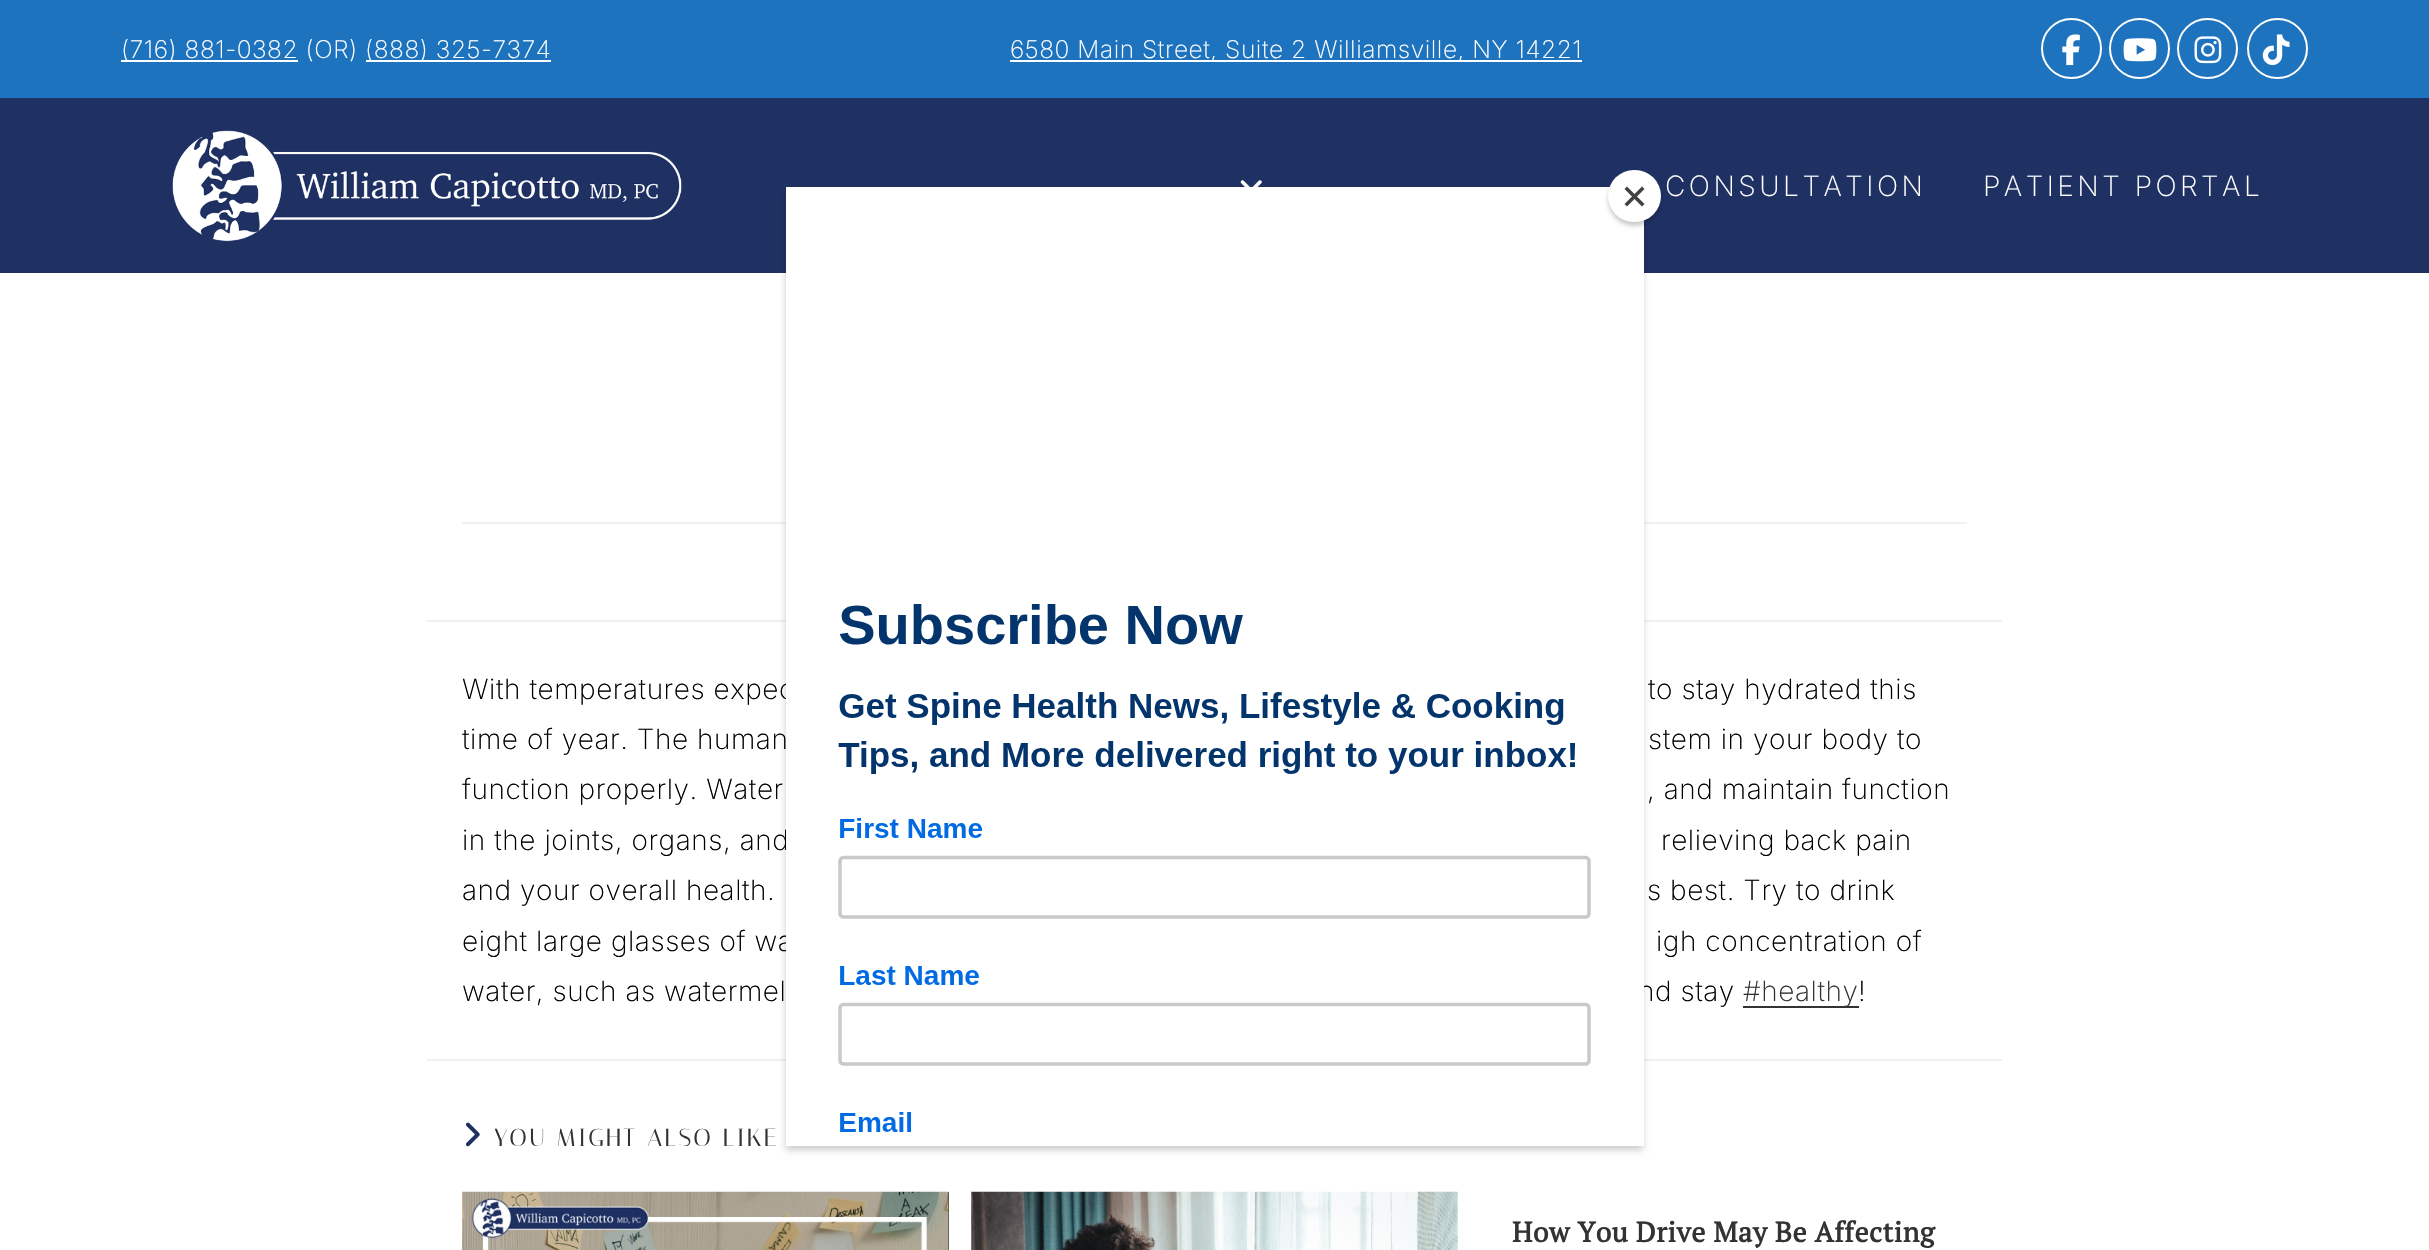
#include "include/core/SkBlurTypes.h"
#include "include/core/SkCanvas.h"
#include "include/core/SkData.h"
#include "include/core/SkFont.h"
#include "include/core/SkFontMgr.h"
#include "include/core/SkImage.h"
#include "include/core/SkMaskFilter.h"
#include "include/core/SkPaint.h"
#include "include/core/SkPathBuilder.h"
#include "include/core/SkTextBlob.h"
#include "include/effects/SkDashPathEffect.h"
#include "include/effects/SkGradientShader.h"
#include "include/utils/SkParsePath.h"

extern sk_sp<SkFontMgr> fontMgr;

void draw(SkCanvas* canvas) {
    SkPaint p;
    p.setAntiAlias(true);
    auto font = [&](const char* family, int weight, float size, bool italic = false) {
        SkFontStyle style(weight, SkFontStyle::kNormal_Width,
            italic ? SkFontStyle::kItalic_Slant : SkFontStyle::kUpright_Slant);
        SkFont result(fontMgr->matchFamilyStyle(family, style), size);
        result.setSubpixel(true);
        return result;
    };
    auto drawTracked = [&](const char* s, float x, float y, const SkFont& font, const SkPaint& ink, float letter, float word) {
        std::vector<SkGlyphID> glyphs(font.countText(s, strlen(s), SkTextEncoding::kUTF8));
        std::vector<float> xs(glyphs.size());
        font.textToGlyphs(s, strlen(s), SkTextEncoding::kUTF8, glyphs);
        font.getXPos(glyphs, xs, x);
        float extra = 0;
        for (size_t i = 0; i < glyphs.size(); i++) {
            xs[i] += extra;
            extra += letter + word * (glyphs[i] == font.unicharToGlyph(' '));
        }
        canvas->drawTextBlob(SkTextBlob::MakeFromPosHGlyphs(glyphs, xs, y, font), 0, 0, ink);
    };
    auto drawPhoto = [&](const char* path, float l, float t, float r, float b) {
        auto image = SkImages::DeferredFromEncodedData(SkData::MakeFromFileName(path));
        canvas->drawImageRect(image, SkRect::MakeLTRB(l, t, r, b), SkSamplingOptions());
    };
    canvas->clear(0xFFFFFFFF);
    p.setColor(0xFF1E73BE);
    canvas->drawRect(SkRect::MakeLTRB(0, 0, 2429, 98), p);
    p.setColor(0xFFFFFFFF);
    canvas->drawRect(SkRect::MakeLTRB(121, 60, 298, 62), p);
    auto font1 = font("Inter", 200, 24.5f);
    drawTracked("(716) 881-0382 (OR)", 121, 58, font1, p, 0.55f, 0);
    canvas->drawRect(SkRect::MakeLTRB(366, 60, 551, 62), p);
    drawTracked("(888) 325-7374", 365, 58, font1, p, 0.55f, 0);
    canvas->drawRect(SkRect::MakeLTRB(1010, 60, 1582, 62), p);
    drawTracked("6580 Main Street, Suite 2 Williamsville, NY 14221", 1010, 58, font1, p, 0.55f, 0);
    p.setStyle(SkPaint::kStroke_Style);
    p.setStrokeWidth(2);
    canvas->drawCircle(2071.5f, 48.5f, 29.5f, p);
    drawPhoto("media/1.png", 2062, 34, 2080, 66);
    canvas->drawCircle(2139.5f, 48.5f, 29.5f, p);
    drawPhoto("media/2.png", 2123, 38, 2157, 62);
    canvas->drawCircle(2207.5f, 48.5f, 29.5f, p);
    drawPhoto("media/3.png", 2194, 36, 2222, 64);
    canvas->drawCircle(2277.5f, 48.5f, 29.5f, p);
    drawPhoto("media/4.png", 2262, 34, 2290, 66);
    p.setStyle(SkPaint::kFill_Style);
    p.setColor(0xFF1F3163);
    canvas->drawRect(SkRect::MakeLTRB(0, 98, 2429, 273), p);
    drawPhoto("media/5.png", 172, 130, 682, 242);
    drawPhoto("media/6.png", 1240, 180, 1262, 187);
    auto font2 = font("Inter", 200, 28);
    p.setColor(0xFFFFFFFF);
    drawTracked("CONSULTATION", 1665, 196, font2, p, 3.5f, 0);
    drawTracked("PATIENT PORTAL", 1983, 196, font2, p, 3.5f, 0);
    p.setColor(0xFFF1F1F1);
    canvas->drawRect(SkRect::MakeLTRB(462, 522, 1967, 524), p);
    canvas->drawRect(SkRect::MakeLTRB(427, 620, 2002, 622), p);
    p.setColor(0xFF000000);
    {
        const struct { const char* s; float x, y; } items[] = {
            {"With temperatures expec", 462, 699},
            {"to stay hydrated this", 1648, 699},
            {"time of year. The human", 462, 749},
            {"stem in your body to", 1648, 749},
            {"function properly. Water", 462, 799},
            {", and maintain function", 1647, 799},
            {"in the joints, organs, and", 462, 850},
            {"relieving back pain", 1661, 850},
            {"and your overall health.", 462, 900},
            {"s best. Try to drink", 1647, 900},
            {"eight large glasses of wa", 462, 951},
            {"igh concentration of", 1656, 951},
            {"water, such as watermel", 462, 1001},
            {"nd stay", 1638, 1001},
        };
        for (auto [s, x, y] : items) {
            drawTracked(s, x, y, font2, p, 0.55f, 0);
        }
    }
    p.setColor(0xFF333333);
    canvas->drawRect(SkRect::MakeLTRB(1743, 1006, 1859, 1008), p);
    drawTracked("#healthy", 1743, 1001, font2, p, 0.55f, 0);
    p.setColor(0xFF000000);
    drawTracked("!", 1858, 1001, font2, p, 0.55f, 0);
    p.setColor(0xFFF1F1F1);
    canvas->drawRect(SkRect::MakeLTRB(427, 1059, 2002, 1061), p);
    drawPhoto("media/7.png", 465, 1122, 480, 1147);
    auto font3 = font("Italiana", 400, 24.5f);
    p.setColor(0xFF333333);
    drawTracked("YOU MIGHT ALSO LIKE", 494, 1146, font3, p, 2.25f, 0);
    p.setColor(0xFF222222);
    canvas->drawRect(SkRect::MakeLTRB(948, 1192, 949, 1250), p);
    drawPhoto("media/8.png", 462, 1191, 949, 1250);
    drawPhoto("media/9.png", 971, 1191, 1458, 1250);
    auto font4 = font("PT Serif", 700, 28);
    p.setColor(0xFF333333);
    drawTracked("How You Drive May Be Affecting", 1512, 1242, font4, p, 0.55f, 0);
    p.setColor(0x33000000);
    p.setMaskFilter(SkMaskFilter::MakeBlur(kNormal_SkBlurStyle, 3.5f));
    canvas->drawRect(SkRect::MakeLTRB(786, 191, 1643, 1150), p);
    p.setMaskFilter(nullptr);
    drawPhoto("media/10.png", 786, 187, 1644, 1146);
    p.setMaskFilter(SkMaskFilter::MakeBlur(kNormal_SkBlurStyle, 2));
    canvas->drawRoundRect(SkRect::MakeLTRB(1608, 173, 1661, 226), 26.5f, 26.5f, p);
    p.setMaskFilter(nullptr);
    p.setColor(0xFFFFFFFF);
    canvas->drawRoundRect(SkRect::MakeLTRB(1608, 170, 1661, 222), 26, 26, p);
    p.setColor(0xFF414141);
    canvas->drawPath(SkPathBuilder().moveTo(1642, 186.5f).lineTo(1644.5f, 189).lineTo(1627, 206.5f).lineTo(1624.5f, 204).close().detach(), p);
    canvas->drawPath(SkPathBuilder().moveTo(1624.5f, 189).lineTo(1627, 186.5f).lineTo(1644.5f, 204).lineTo(1642, 206.5f).close().detach(), p);
}
